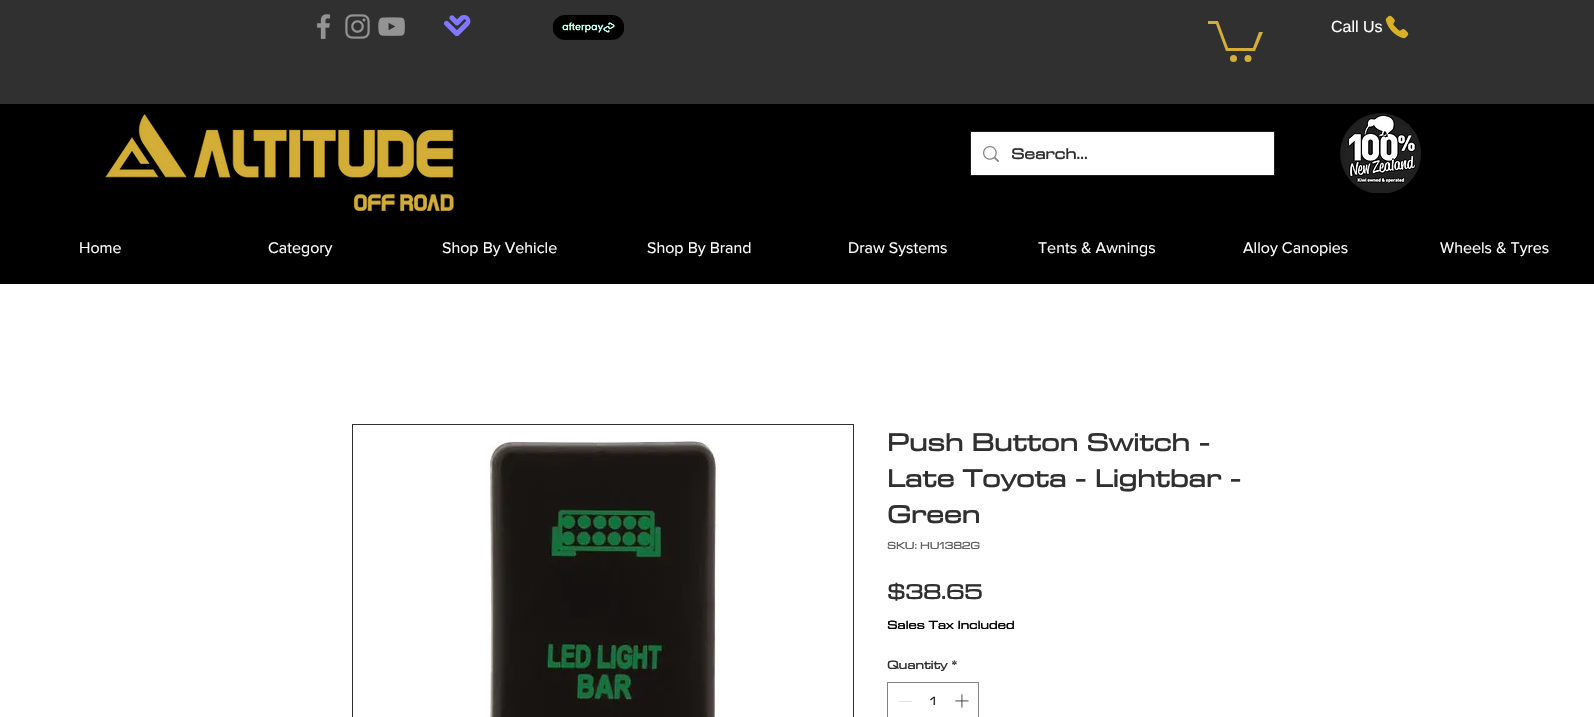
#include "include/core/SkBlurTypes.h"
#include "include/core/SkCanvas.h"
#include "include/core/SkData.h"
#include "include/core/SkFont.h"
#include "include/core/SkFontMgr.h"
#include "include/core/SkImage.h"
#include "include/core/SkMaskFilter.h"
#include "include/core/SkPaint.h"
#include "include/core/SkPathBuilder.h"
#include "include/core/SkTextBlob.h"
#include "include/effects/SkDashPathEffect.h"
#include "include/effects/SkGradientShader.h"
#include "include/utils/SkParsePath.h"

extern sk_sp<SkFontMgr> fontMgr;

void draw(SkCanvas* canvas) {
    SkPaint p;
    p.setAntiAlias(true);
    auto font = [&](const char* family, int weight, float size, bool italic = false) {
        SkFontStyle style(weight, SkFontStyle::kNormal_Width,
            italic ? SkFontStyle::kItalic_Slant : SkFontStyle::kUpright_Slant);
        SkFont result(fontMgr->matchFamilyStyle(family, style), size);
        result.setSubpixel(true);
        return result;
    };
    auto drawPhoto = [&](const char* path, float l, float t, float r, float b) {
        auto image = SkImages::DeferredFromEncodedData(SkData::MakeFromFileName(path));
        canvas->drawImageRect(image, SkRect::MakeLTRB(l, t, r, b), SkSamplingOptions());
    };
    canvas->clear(0xFFFFFFFF);
    p.setColor(0xFF303030);
    canvas->drawRect(SkRect::MakeLTRB(0, 0, 1594, 104), p);
    drawPhoto("media/1.png", 316, 14, 331, 40);
    drawPhoto("media/2.png", 345, 14, 370, 39);
    drawPhoto("media/3.png", 378, 17, 405, 36);
    drawPhoto("media/4.png", 444, 15, 471, 36);
    drawPhoto("media/5.png", 553, 15, 624, 40);
    p.setColor(0xFFD4AF37);
    canvas->drawPath(SkPathBuilder().moveTo(1263, 32).lineTo(1255, 51).lineTo(1226, 51).lineTo(1216, 24).lineTo(1208, 24).lineTo(1208, 21).lineTo(1218, 21).lineTo(1228, 48).lineTo(1253, 48).lineTo(1259, 32).detach(), p);
    canvas->drawCircle(1248, 58.5f, 3.5f, p);
    canvas->drawCircle(1233.5f, 58.5f, 3.5f, p);
    auto font1 = font("Liberation Sans", 400, 16);
    p.setColor(0xFFFFFFFF);
    canvas->drawString("Call Us", 1331, 32, font1, p);
    drawPhoto("media/6.png", 1385, 15, 1409, 39);
    p.setColor(0xFF000000);
    canvas->drawRect(SkRect::MakeLTRB(0, 104, 1594, 284), p);
    drawPhoto("media/7.png", 105, 114, 454, 211);
    p.setStyle(SkPaint::kStroke_Style);
    p.setStrokeWidth(1);
    p.setColor(0xFF1D1D1D);
    canvas->drawRect(SkRect::MakeLTRB(970.5f, 131.5f, 1274.5f, 175.5f), p);
    p.setStyle(SkPaint::kFill_Style);
    p.setColor(0xFFFFFFFF);
    canvas->drawRect(SkRect::MakeLTRB(971, 132, 1274, 175), p);
    drawPhoto("media/8.png", 983, 146, 999, 162);
    auto font2 = font("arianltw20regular", 700, 18);
    p.setColor(0xFF303030);
    canvas->drawString("Search...", 1011, 159, font2, p);
    drawPhoto("media/9.png", 1340, 113, 1421, 193);
    auto font3 = font("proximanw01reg", 400, 16);
    p.setColor(0xFFFFFFFF);
    {
        const struct { const char* s; float x, y; } items[] = {
            {"Home", 79, 253},
            {"Category", 268, 253},
            {"Shop By Vehicle", 442, 253},
            {"Shop By Brand", 647, 253},
            {"Draw Systems", 848, 253},
            {"Tents & Awnings", 1038, 253},
            {"Alloy Canopies", 1243, 253},
            {"Wheels & Tyres", 1440, 253},
        };
        for (auto [s, x, y] : items) {
            canvas->drawString(s, x, y, font3, p);
        }
    }
    p.setStyle(SkPaint::kStroke_Style);
    p.setColor(0xFF303030);
    canvas->drawRect(SkRect::MakeLTRB(352.5f, 424.5f, 853.5f, 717.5f), p);
    drawPhoto("media/10.png", 489, 441, 719, 717);
    auto font4 = font("arianltw20regular", 700, 30);
    p.setStyle(SkPaint::kFill_Style);
    {
        const struct { const char* s; float x, y; } items[] = {
            {"Push Button Switch -", 887, 451},
            {"Late Toyota - Lightbar -", 887, 487},
            {"Green", 887, 523},
        };
        for (auto [s, x, y] : items) {
            canvas->drawString(s, x, y, font4, p);
        }
    }
    auto font5 = font("arianltw20regular", 700, 12);
    p.setColor(0xFF606060);
    canvas->drawString("SKU: HU1382G", 887, 549, font5, p);
    auto font6 = font("arianltw20regular", 700, 25);
    p.setColor(0xFF303030);
    canvas->drawString("$38.65", 887, 599, font6, p);
    auto font7 = font("arianltw20regular", 700, 14);
    p.setColor(0xFF000000);
    canvas->drawString("Sales Tax Included", 887, 629, font7, p);
    p.setColor(0xFF303030);
    canvas->drawString("Quantity *", 887, 669, font7, p);
    p.setStyle(SkPaint::kStroke_Style);
    p.setColor(0xFF838383);
    canvas->drawRect(SkRect::MakeLTRB(887.5f, 682.5f, 978.5f, 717.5f), p);
    p.setStyle(SkPaint::kFill_Style);
    p.setColor(0xFFE3E3E3);
    canvas->drawRect(SkRect::MakeLTRB(899, 701, 912, 702), p);
    p.setColor(0xFF303030);
    canvas->drawString("1", 930, 705, font7, p);
    drawPhoto("media/11.png", 955, 694, 969, 708);
}
